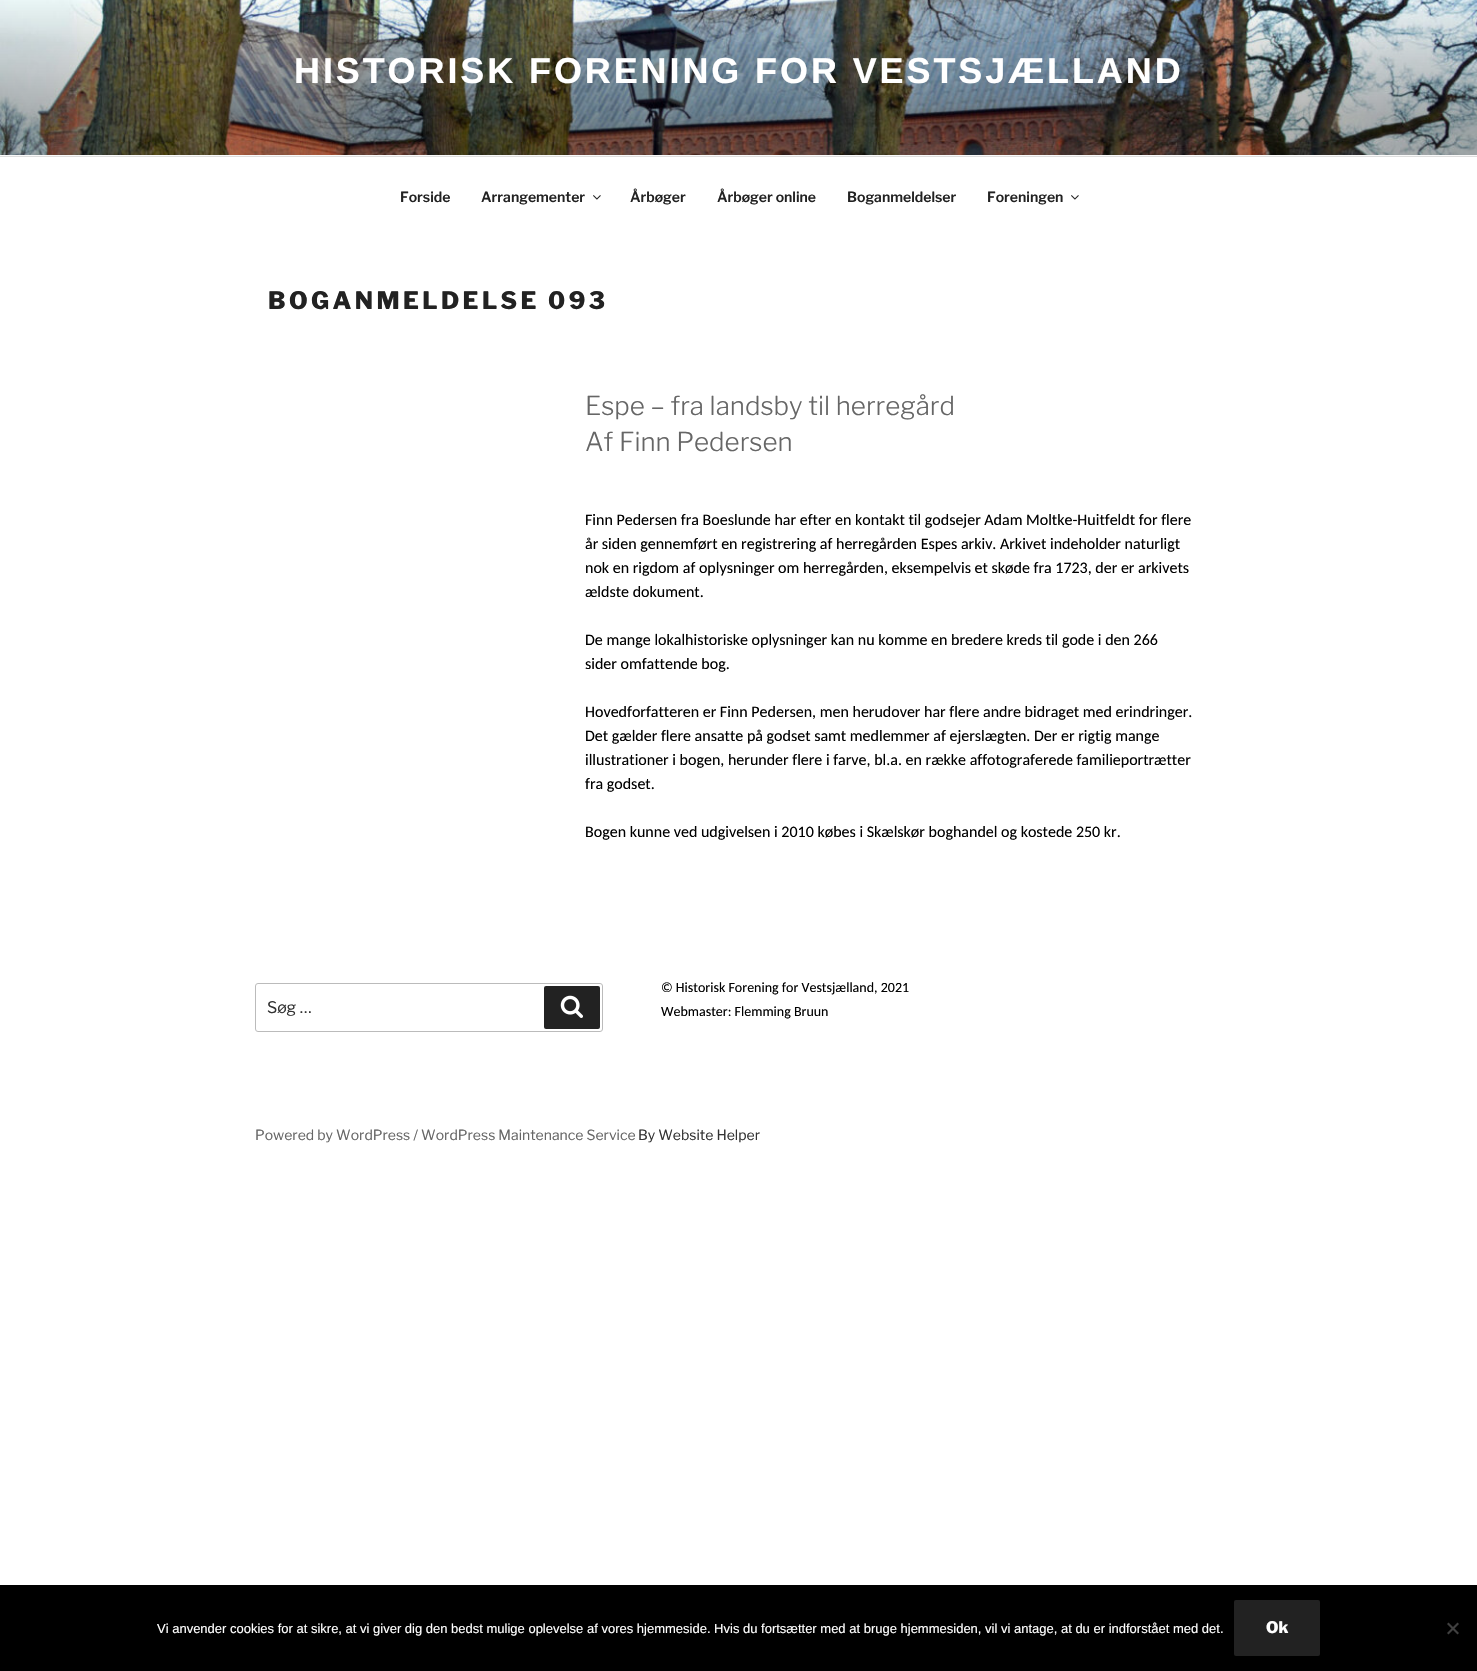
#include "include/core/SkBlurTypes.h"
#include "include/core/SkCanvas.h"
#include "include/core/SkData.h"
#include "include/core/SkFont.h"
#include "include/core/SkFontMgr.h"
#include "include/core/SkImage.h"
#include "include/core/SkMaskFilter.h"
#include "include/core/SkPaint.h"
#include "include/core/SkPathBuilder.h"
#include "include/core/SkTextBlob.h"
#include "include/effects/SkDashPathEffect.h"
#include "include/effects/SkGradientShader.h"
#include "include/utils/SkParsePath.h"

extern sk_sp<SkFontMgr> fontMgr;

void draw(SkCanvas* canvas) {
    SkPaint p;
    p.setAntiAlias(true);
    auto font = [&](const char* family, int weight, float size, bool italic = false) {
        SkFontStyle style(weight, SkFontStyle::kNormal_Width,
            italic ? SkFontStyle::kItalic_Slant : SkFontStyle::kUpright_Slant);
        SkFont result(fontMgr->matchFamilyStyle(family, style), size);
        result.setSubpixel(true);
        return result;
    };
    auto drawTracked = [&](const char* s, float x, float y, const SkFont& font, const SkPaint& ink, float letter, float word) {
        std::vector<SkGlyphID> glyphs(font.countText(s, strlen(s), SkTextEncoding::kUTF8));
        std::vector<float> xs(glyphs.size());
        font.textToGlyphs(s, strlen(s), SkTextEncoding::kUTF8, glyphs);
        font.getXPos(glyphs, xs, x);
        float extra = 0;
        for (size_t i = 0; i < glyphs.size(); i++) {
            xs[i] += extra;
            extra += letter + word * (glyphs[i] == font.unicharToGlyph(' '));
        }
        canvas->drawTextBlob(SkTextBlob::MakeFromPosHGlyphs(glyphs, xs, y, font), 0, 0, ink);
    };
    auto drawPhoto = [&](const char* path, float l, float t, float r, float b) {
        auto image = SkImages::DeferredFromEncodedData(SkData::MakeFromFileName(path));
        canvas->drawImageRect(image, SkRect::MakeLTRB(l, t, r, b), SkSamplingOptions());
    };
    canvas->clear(0xFFFFFFFF);
    p.setColor(0xFFF9F9F9);
    canvas->drawRect(SkRect::MakeLTRB(0, 155, 1477, 156), p);
    drawPhoto("media/1.png", 0, 0, 1477, 155);
    auto font1 = font("Liberation Sans", 700, 36);
    p.setColor(0xFFFFFFFF);
    drawTracked("HISTORISK FORENING FOR VESTSJÆLLAND", 294, 83, font1, p, 2.9f, 0);
    p.setColor(0xFFDDDDDD);
    canvas->drawRect(SkRect::MakeLTRB(0, 156, 1477, 157), p);
    auto font2 = font("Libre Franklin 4", 100, 14);
    p.setColor(0xFF222222);
    canvas->drawString("Forside", 400, 202, font2, p);
    canvas->drawString("Arrangementer", 481, 202, font2, p);
    drawPhoto("media/2.png", 593, 195, 601, 200);
    {
        const struct { const char* s; float x, y; } items[] = {
            {"Årbøger", 630, 202},
            {"Årbøger online", 717, 202},
            {"Boganmeldelser", 847, 202},
            {"Foreningen", 987, 202},
        };
        for (auto [s, x, y] : items) {
            canvas->drawString(s, x, y, font2, p);
        }
    }
    drawPhoto("media/2.png", 1071, 195, 1079, 200);
    auto font3 = font("Libre Franklin", 100, 24);
    drawTracked("BOGANMELDELSE 093", 268, 309, font3, p, 3.4f, 0);
    auto font4 = font("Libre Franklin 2", 100, 26);
    p.setColor(0xFF666666);
    canvas->drawString("Espe – fra landsby til herregård", 585, 415, font4, p);
    canvas->drawString("Af Finn Pedersen", 585, 451, font4, p);
    auto font5 = font("Carlito", 400, 16);
    p.setColor(0xFF000000);
    {
        const struct { const char* s; float x, y; } items[] = {
            {"Finn Pedersen fra Boeslunde har efter en kontakt til godsejer Adam Moltke-Huitfeldt for flere", 585, 525},
            {"år siden gennemført en registrering af herregården Espes arkiv. Arkivet indeholder naturligt", 585, 549},
            {"nok en rigdom af oplysninger om herregården, eksempelvis et skøde fra 1723, der er arkivets", 585, 573},
            {"ældste dokument.", 585, 597},
            {"De mange lokalhistoriske oplysninger kan nu komme en bredere kreds til gode i den 266", 585, 645},
            {"sider omfattende bog.", 585, 669},
            {"Hovedforfatteren er Finn Pedersen, men herudover har flere andre bidraget med erindringer.", 585, 717},
            {"Det gælder flere ansatte på godset samt medlemmer af ejerslægten. Der er rigtig mange", 585, 741},
            {"illustrationer i bogen, herunder flere i farve, bl.a. en række affotograferede familieportrætter", 585, 765},
            {"fra godset.", 585, 789},
            {"Bogen kunne ved udgivelsen i 2010 købes i Skælskør boghandel og kostede 250 kr.", 585, 837},
        };
        for (auto [s, x, y] : items) {
            canvas->drawString(s, x, y, font5, p);
        }
    }
    p.setStyle(SkPaint::kStroke_Style);
    p.setStrokeWidth(1);
    p.setColor(0xFFBBBBBB);
    canvas->drawRoundRect(SkRect::MakeLTRB(255.5f, 983.5f, 602.5f, 1031.5f), 2.5f, 2.5f, p);
    auto font6 = font("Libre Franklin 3", 100, 16);
    p.setStyle(SkPaint::kFill_Style);
    p.setColor(0xFF333333);
    canvas->drawString("Søg …", 267, 1013, font6, p);
    p.setColor(0xFF222222);
    canvas->drawRoundRect(SkRect::MakeLTRB(544, 986, 600, 1029), 2, 2, p);
    drawPhoto("media/3.png", 560, 995, 583, 1018);
    auto font7 = font("Carlito", 400, 14);
    p.setColor(0xFF000000);
    canvas->drawString("© Historisk Forening for Vestsjælland, 2021", 661, 992, font7, p);
    canvas->drawString("Webmaster: Flemming Bruun", 661, 1016, font7, p);
    auto font8 = font("Libre Franklin 3", 100, 14);
    p.setColor(0xFF666666);
    canvas->drawString("Powered by WordPress / WordPress Maintenance Service", 255, 1140, font8, p);
    p.setColor(0xFF333333);
    canvas->drawString("By Website Helper", 638, 1140, font8, p);
    p.setColor(0xFF000000);
    canvas->drawRect(SkRect::MakeLTRB(0, 1585, 1477, 1671), p);
    auto font9 = font("Liberation Sans", 400, 13);
    p.setColor(0xFFFFFFFF);
    canvas->drawString("Vi anvender cookies for at sikre, at vi giver dig den bedst mulige oplevelse af vores hjemmeside. Hvis du fortsætter med at bruge hjemmesiden, vil vi antage, at du er indforstået med det.", 157, 1633, font9, p);
    p.setColor(0xFF222222);
    canvas->drawRoundRect(SkRect::MakeLTRB(1234, 1600, 1320, 1656), 2, 2, p);
    auto font10 = font("Libre Franklin", 100, 16);
    p.setColor(0xFFFFFFFF);
    canvas->drawString("Ok", 1266, 1633, font10, p);
    p.setColor(0xFF404040);
    canvas->drawPath(SkPathBuilder().moveTo(1457.5f, 1622.5f).lineTo(1459, 1624).lineTo(1448.5f, 1634.5f).lineTo(1447, 1633).close().detach(), p);
    canvas->drawPath(SkPathBuilder().moveTo(1447, 1624).lineTo(1448.5f, 1622.5f).lineTo(1459, 1633).lineTo(1457.5f, 1634.5f).close().detach(), p);
}
